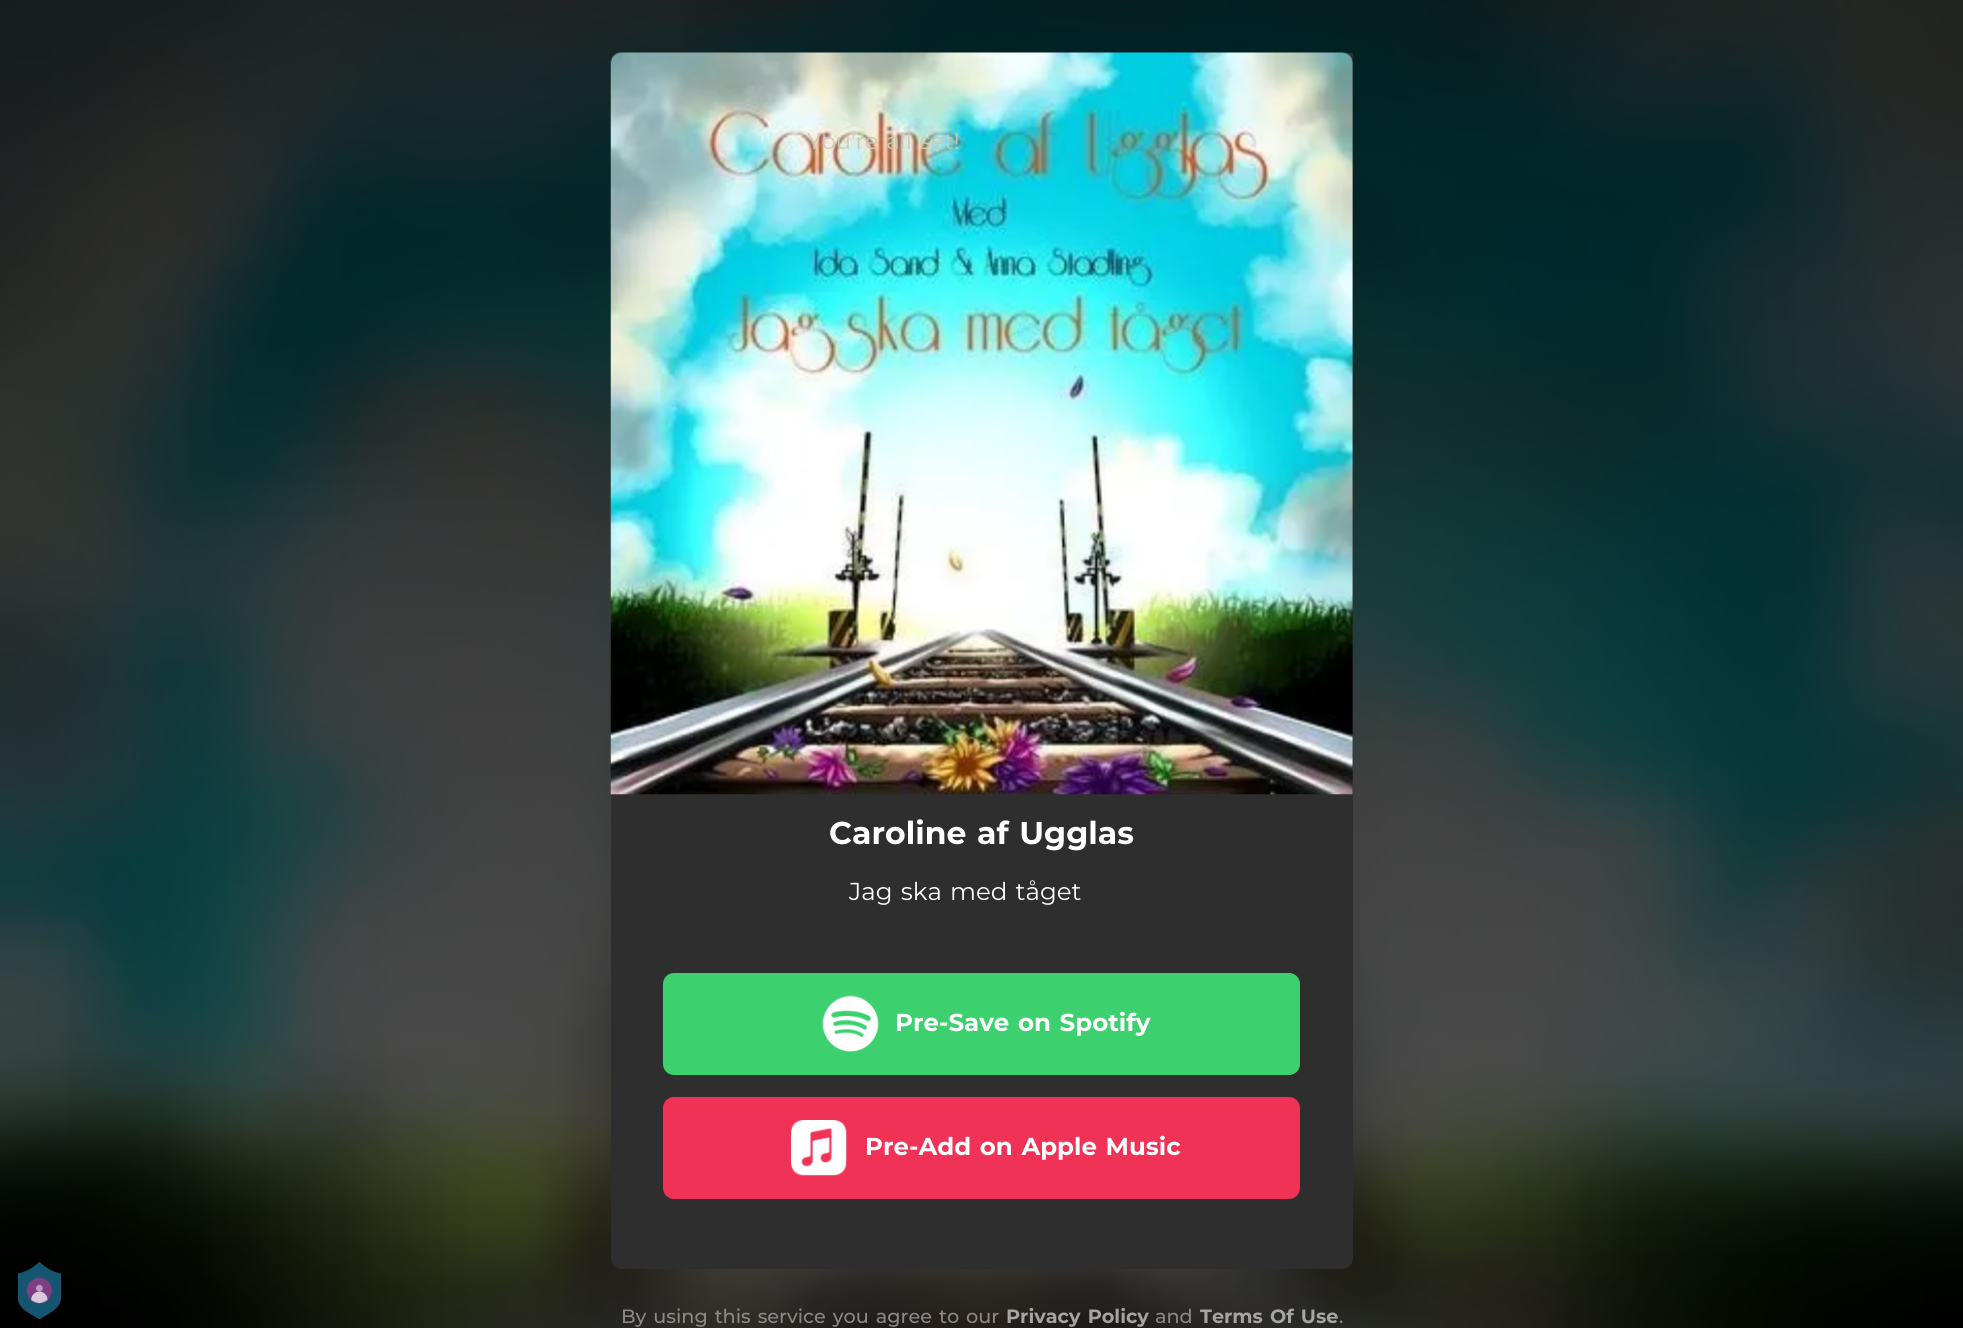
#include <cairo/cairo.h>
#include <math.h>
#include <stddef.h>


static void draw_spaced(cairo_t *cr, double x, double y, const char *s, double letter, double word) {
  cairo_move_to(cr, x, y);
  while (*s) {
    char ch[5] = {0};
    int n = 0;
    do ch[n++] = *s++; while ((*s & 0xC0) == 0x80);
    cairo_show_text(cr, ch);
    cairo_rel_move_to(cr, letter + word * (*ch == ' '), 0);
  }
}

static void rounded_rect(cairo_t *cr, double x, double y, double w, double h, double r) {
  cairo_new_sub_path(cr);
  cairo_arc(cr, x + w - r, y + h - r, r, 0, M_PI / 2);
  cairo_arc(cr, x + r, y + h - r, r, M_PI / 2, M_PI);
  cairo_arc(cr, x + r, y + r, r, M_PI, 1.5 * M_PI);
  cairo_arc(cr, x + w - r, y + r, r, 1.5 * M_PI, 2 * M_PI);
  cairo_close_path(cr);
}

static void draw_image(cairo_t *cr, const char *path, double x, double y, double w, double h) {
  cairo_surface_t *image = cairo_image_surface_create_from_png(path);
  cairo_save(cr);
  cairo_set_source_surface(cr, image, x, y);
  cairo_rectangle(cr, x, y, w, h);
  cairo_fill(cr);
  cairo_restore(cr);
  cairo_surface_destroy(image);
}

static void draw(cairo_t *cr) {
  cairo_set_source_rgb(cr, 1, 1, 1);
  cairo_paint(cr);
  draw_image(cr, "images/2.png", 0, 0, 1963, 1328);
  draw_image(cr, "images/1.png", 18, 1262, 43, 58);
  cairo_set_source_rgb(cr, 47 / 255.0, 47 / 255.0, 47 / 255.0);
  cairo_new_path(cr);
  cairo_move_to(cr, 622, 53);
  cairo_line_to(cr, 1353, 53);
  cairo_line_to(cr, 1353, 795);
  cairo_line_to(cr, 622, 795);
  cairo_curve_to(cr, 616, 795, 611, 790, 611, 784);
  cairo_line_to(cr, 611, 64);
  cairo_curve_to(cr, 611, 58, 616, 53, 622, 53);
  cairo_close_path(cr);
  cairo_fill(cr);
  draw_image(cr, "images/3.png", 610, 52, 743, 743);
  cairo_set_source_rgb(cr, 46 / 255.0, 46 / 255.0, 46 / 255.0);
  cairo_new_path(cr);
  cairo_move_to(cr, 611, 795);
  cairo_line_to(cr, 1353, 795);
  cairo_line_to(cr, 1353, 1258);
  cairo_curve_to(cr, 1353, 1264, 1348, 1269, 1342, 1269);
  cairo_line_to(cr, 622, 1269);
  cairo_curve_to(cr, 616, 1269, 611, 1264, 611, 1258);
  cairo_close_path(cr);
  cairo_fill(cr);
  cairo_set_source_rgb(cr, 60 / 255.0, 209 / 255.0, 110 / 255.0);
  rounded_rect(cr, 663, 973, 637, 102, 11);
  cairo_fill(cr);
  draw_image(cr, "images/4.png", 822, 995, 57, 57);
  cairo_set_source_rgb(cr, 239 / 255.0, 50 / 255.0, 86 / 255.0);
  rounded_rect(cr, 663, 1097, 637, 102, 11);
  cairo_fill(cr);
  draw_image(cr, "images/5.png", 791, 1120, 56, 56);
  cairo_select_font_face(cr, "Montserrat", CAIRO_FONT_SLANT_NORMAL, CAIRO_FONT_WEIGHT_NORMAL);
  cairo_set_font_size(cr, 22.75);
  cairo_set_source_rgb(cr, 198 / 255.0, 203 / 255.0, 188 / 255.0);
  draw_spaced(cr, 807, 149, "You're all set!", 0, 1.75);
  cairo_select_font_face(cr, "Montserrat", CAIRO_FONT_SLANT_NORMAL, CAIRO_FONT_WEIGHT_BOLD);
  cairo_set_font_size(cr, 31.5);
  cairo_set_source_rgb(cr, 1, 1, 1);
  draw_spaced(cr, 829, 844, "Caroline af Ugglas", 0, 1.75);
  cairo_select_font_face(cr, "Montserrat", CAIRO_FONT_SLANT_NORMAL, CAIRO_FONT_WEIGHT_NORMAL);
  cairo_set_font_size(cr, 24.5);
  draw_spaced(cr, 849, 900, "Jag ska med tåget", 0, 1.75);
  cairo_select_font_face(cr, "Montserrat", CAIRO_FONT_SLANT_NORMAL, CAIRO_FONT_WEIGHT_BOLD);
  draw_spaced(cr, 895, 1031, "Pre-Save on Spotify", 0, 1.75);
  draw_spaced(cr, 865, 1155, "Pre-Add on Apple Music", 0, 1.75);
  cairo_select_font_face(cr, "Montserrat Medium", CAIRO_FONT_SLANT_NORMAL, CAIRO_FONT_WEIGHT_NORMAL);
  cairo_set_font_size(cr, 19.25);
  cairo_set_source_rgb(cr, 138 / 255.0, 137 / 255.0, 135 / 255.0);
  draw_spaced(cr, 621, 1323, "By using this service you agree to our", 0, 1.75);
  cairo_select_font_face(cr, "Montserrat", CAIRO_FONT_SLANT_NORMAL, CAIRO_FONT_WEIGHT_BOLD);
  cairo_set_source_rgb(cr, 167 / 255.0, 165 / 255.0, 164 / 255.0);
  draw_spaced(cr, 1006, 1323, "Privacy Policy", 0, 1.75);
  cairo_select_font_face(cr, "Montserrat Medium", CAIRO_FONT_SLANT_NORMAL, CAIRO_FONT_WEIGHT_NORMAL);
  cairo_set_source_rgb(cr, 138 / 255.0, 137 / 255.0, 135 / 255.0);
  cairo_move_to(cr, 1155, 1323);
  cairo_show_text(cr, "and");
  cairo_select_font_face(cr, "Montserrat", CAIRO_FONT_SLANT_NORMAL, CAIRO_FONT_WEIGHT_BOLD);
  cairo_set_source_rgb(cr, 167 / 255.0, 165 / 255.0, 164 / 255.0);
  draw_spaced(cr, 1200, 1323, "Terms Of Use", 0, 1.75);
  cairo_select_font_face(cr, "Montserrat Medium", CAIRO_FONT_SLANT_NORMAL, CAIRO_FONT_WEIGHT_NORMAL);
  cairo_set_source_rgb(cr, 138 / 255.0, 137 / 255.0, 135 / 255.0);
  cairo_move_to(cr, 1339, 1323);
  cairo_show_text(cr, ".");
}

int main(void) {
  cairo_surface_t *surface = cairo_image_surface_create(CAIRO_FORMAT_RGB24, 1963, 1328);
  cairo_t *cr = cairo_create(surface);
  cairo_font_options_t *options = cairo_font_options_create();
  cairo_font_options_set_hint_metrics(options, CAIRO_HINT_METRICS_OFF);
  cairo_font_options_set_hint_style(options, CAIRO_HINT_STYLE_NONE);
  cairo_set_font_options(cr, options);
  cairo_set_miter_limit(cr, 4);
  draw(cr);
  cairo_surface_write_to_png(surface, "out.png");
  cairo_font_options_destroy(options);
  cairo_destroy(cr);
  cairo_surface_destroy(surface);
  return 0;
}
